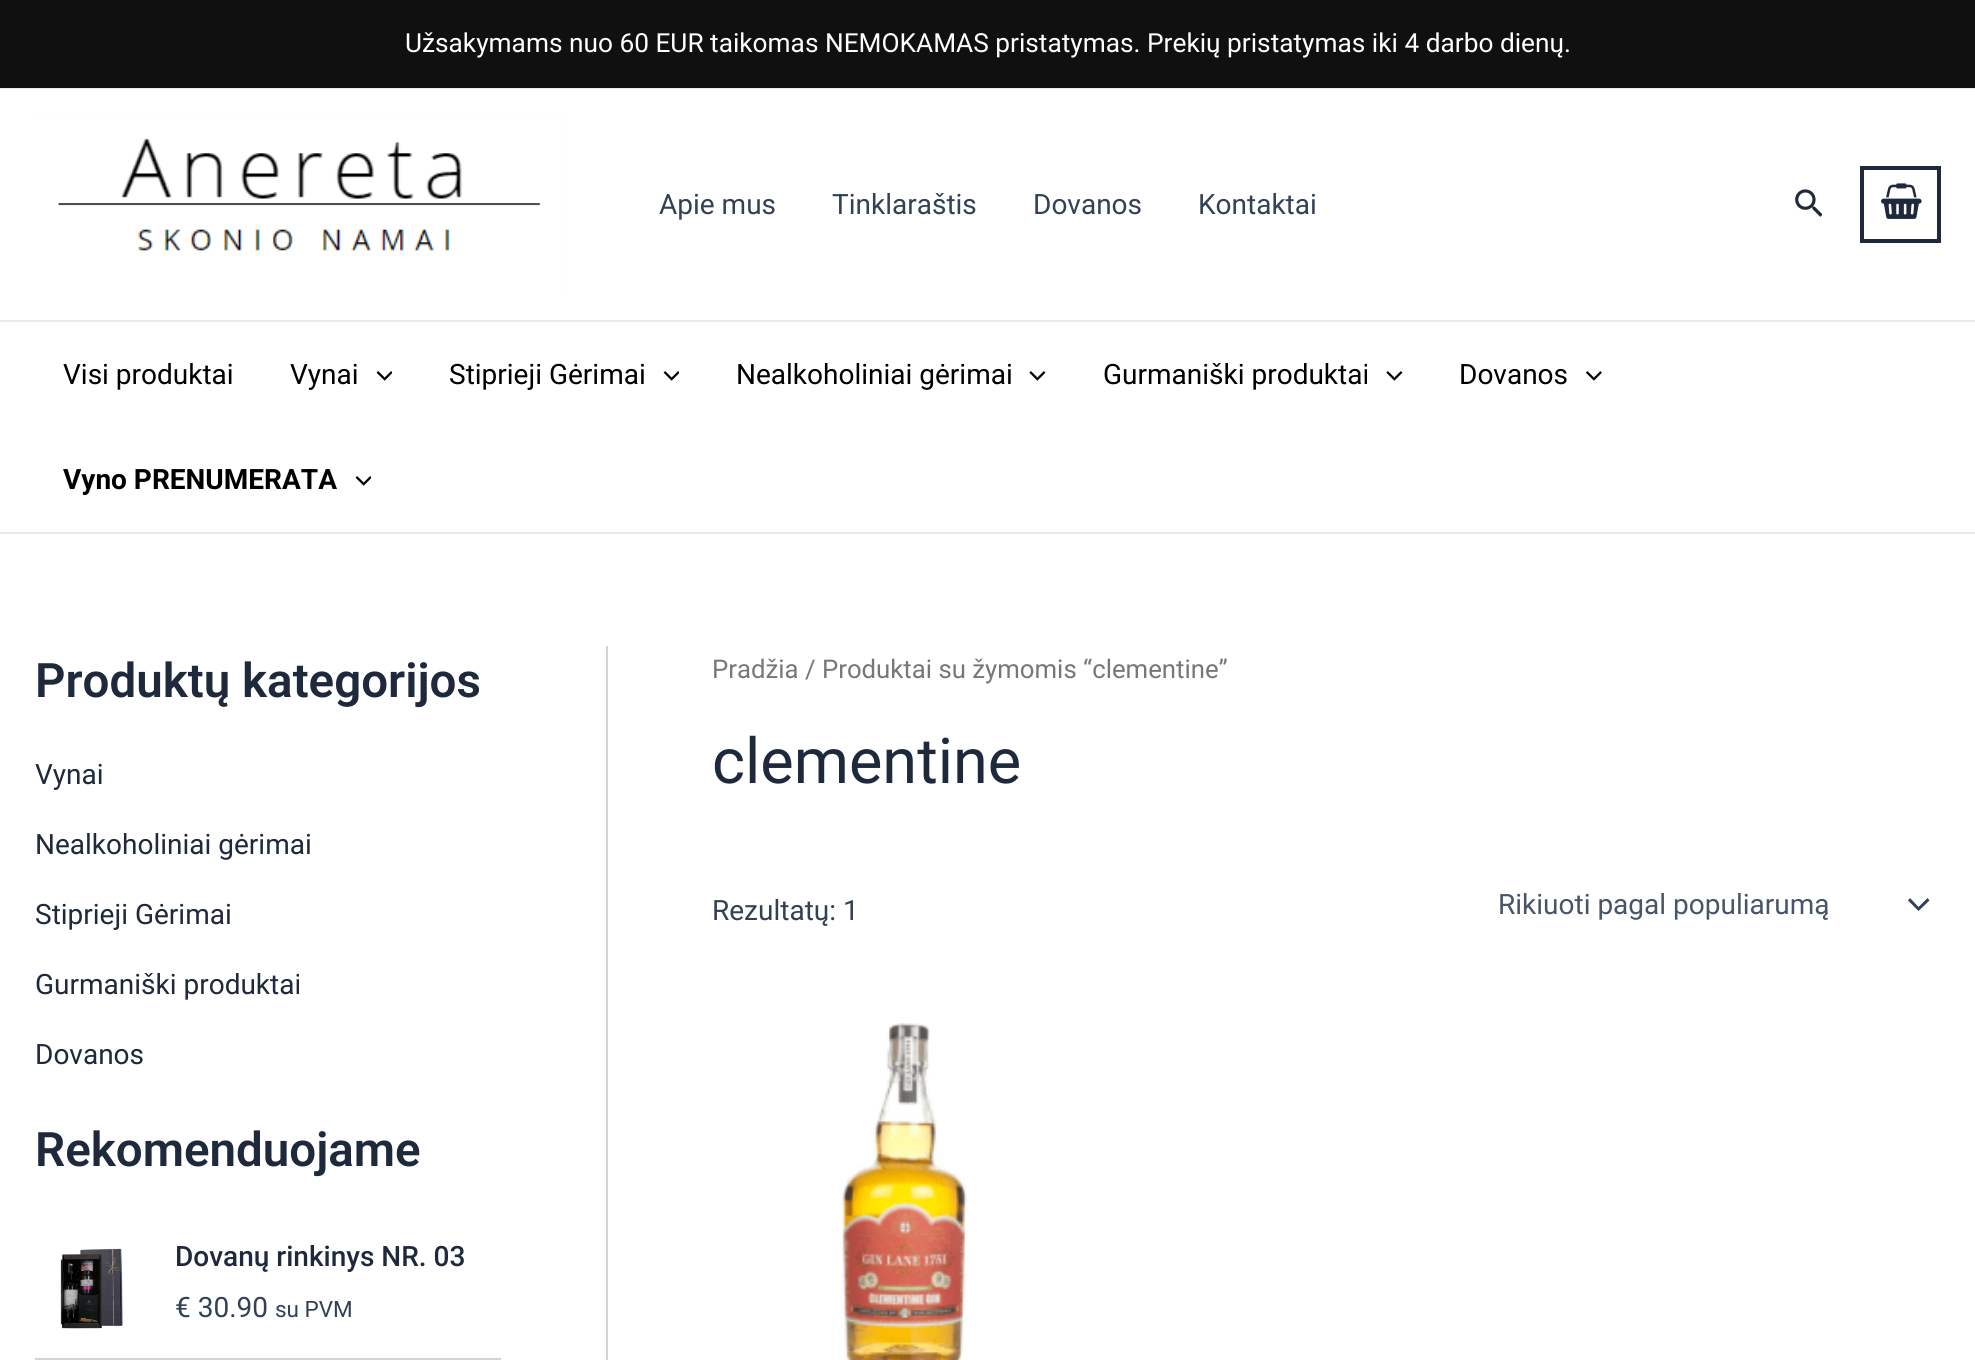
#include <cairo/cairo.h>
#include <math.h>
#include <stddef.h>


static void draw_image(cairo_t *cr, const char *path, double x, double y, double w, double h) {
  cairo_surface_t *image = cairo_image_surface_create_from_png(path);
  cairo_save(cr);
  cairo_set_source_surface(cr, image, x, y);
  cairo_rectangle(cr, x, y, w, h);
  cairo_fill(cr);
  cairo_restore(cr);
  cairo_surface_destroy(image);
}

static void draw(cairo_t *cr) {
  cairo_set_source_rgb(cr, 1, 1, 1);
  cairo_paint(cr);
  cairo_set_source_rgb(cr, 17 / 255.0, 16 / 255.0, 16 / 255.0);
  cairo_rectangle(cr, 0, 0, 1975, 88);
  cairo_fill(cr);
  cairo_set_source_rgb(cr, 234 / 255.0, 234 / 255.0, 234 / 255.0);
  cairo_rectangle(cr, 0, 88, 1975, 1);
  cairo_fill(cr);
  cairo_rectangle(cr, 0, 320, 1975, 2);
  cairo_fill(cr);
  cairo_set_source_rgb(cr, 241 / 255.0, 241 / 255.0, 241 / 255.0);
  cairo_rectangle(cr, 35, 117, 527, 175);
  cairo_fill(cr);
  draw_image(cr, "images/1.png", 35, 117, 527, 175);
  draw_image(cr, "images/2.png", 1795, 189, 27, 28);
  cairo_rectangle(cr, 1862, 168, 77, 73);
  cairo_set_source_rgb(cr, 30 / 255.0, 41 / 255.0, 59 / 255.0);
  cairo_set_line_width(cr, 4);
  cairo_stroke(cr);
  draw_image(cr, "images/3.png", 1881, 183, 41, 36);
  cairo_set_source_rgb(cr, 234 / 255.0, 234 / 255.0, 234 / 255.0);
  cairo_rectangle(cr, 0, 532, 1975, 2);
  cairo_fill(cr);
  draw_image(cr, "images/4.png", 376, 371, 16, 10);
  draw_image(cr, "images/4.png", 663, 371, 16, 10);
  draw_image(cr, "images/5.png", 1029, 371, 17, 10);
  draw_image(cr, "images/5.png", 1386, 371, 17, 10);
  draw_image(cr, "images/6.png", 1586, 371, 16, 10);
  draw_image(cr, "images/4.png", 355, 476, 16, 10);
  cairo_set_source_rgb(cr, 209 / 255.0, 213 / 255.0, 219 / 255.0);
  cairo_rectangle(cr, 606, 646, 2, 714);
  cairo_fill(cr);
  cairo_rectangle(cr, 35, 1358, 466, 2);
  cairo_fill(cr);
  draw_image(cr, "images/7.png", 35, 1232, 112, 112);
  cairo_set_source_rgb(cr, 51 / 255.0, 65 / 255.0, 85 / 255.0);
  cairo_new_path(cr);
  cairo_move_to(cr, 1908, 900.5);
  cairo_line_to(cr, 1918.5, 911);
  cairo_line_to(cr, 1929.5, 900.5);
  cairo_line_to(cr, 1927.5, 898);
  cairo_line_to(cr, 1918.5, 907);
  cairo_line_to(cr, 1910, 898);
  cairo_close_path(cr);
  cairo_fill(cr);
  draw_image(cr, "images/8.png", 842, 1023, 126, 337);
  cairo_select_font_face(cr, "Roboto", CAIRO_FONT_SLANT_NORMAL, CAIRO_FONT_WEIGHT_NORMAL);
  cairo_set_font_size(cr, 26.25);
  cairo_set_source_rgb(cr, 1, 1, 1);
  cairo_move_to(cr, 405, 52);
  cairo_show_text(cr, "Užsakymams nuo 60 EUR taikomas NEMOKAMAS pristatymas. Prekių pristatymas iki 4 darbo dienų.");
  cairo_set_font_size(cr, 28);
  cairo_set_source_rgb(cr, 51 / 255.0, 65 / 255.0, 85 / 255.0);
  cairo_move_to(cr, 659, 214);
  cairo_show_text(cr, "Apie mus");
  cairo_move_to(cr, 832, 214);
  cairo_show_text(cr, "Tinklaraštis");
  cairo_move_to(cr, 1033, 214);
  cairo_show_text(cr, "Dovanos");
  cairo_move_to(cr, 1198, 214);
  cairo_show_text(cr, "Kontaktai");
  cairo_set_source_rgb(cr, 0, 0, 0);
  cairo_move_to(cr, 63, 384);
  cairo_show_text(cr, "Visi produktai");
  cairo_move_to(cr, 290, 384);
  cairo_show_text(cr, "Vynai");
  cairo_move_to(cr, 449, 384);
  cairo_show_text(cr, "Stiprieji Gėrimai");
  cairo_move_to(cr, 736, 384);
  cairo_show_text(cr, "Nealkoholiniai gėrimai");
  cairo_move_to(cr, 1103, 384);
  cairo_show_text(cr, "Gurmaniški produktai");
  cairo_move_to(cr, 1459, 384);
  cairo_show_text(cr, "Dovanos");
  cairo_select_font_face(cr, "Roboto", CAIRO_FONT_SLANT_NORMAL, CAIRO_FONT_WEIGHT_BOLD);
  cairo_move_to(cr, 63, 489);
  cairo_show_text(cr, "Vyno PRENUMERATA");
  cairo_select_font_face(cr, "Roboto SemiBold", CAIRO_FONT_SLANT_NORMAL, CAIRO_FONT_WEIGHT_NORMAL);
  cairo_set_font_size(cr, 47.5);
  cairo_set_source_rgb(cr, 30 / 255.0, 41 / 255.0, 59 / 255.0);
  cairo_move_to(cr, 35, 697);
  cairo_show_text(cr, "Produktų kategorijos");
  cairo_select_font_face(cr, "Roboto", CAIRO_FONT_SLANT_NORMAL, CAIRO_FONT_WEIGHT_NORMAL);
  cairo_set_font_size(cr, 28);
  cairo_move_to(cr, 35, 784);
  cairo_show_text(cr, "Vynai");
  cairo_move_to(cr, 35, 854);
  cairo_show_text(cr, "Nealkoholiniai gėrimai");
  cairo_move_to(cr, 35, 924);
  cairo_show_text(cr, "Stiprieji Gėrimai");
  cairo_move_to(cr, 35, 994);
  cairo_show_text(cr, "Gurmaniški produktai");
  cairo_move_to(cr, 35, 1064);
  cairo_show_text(cr, "Dovanos");
  cairo_select_font_face(cr, "Roboto SemiBold", CAIRO_FONT_SLANT_NORMAL, CAIRO_FONT_WEIGHT_NORMAL);
  cairo_set_font_size(cr, 47.5);
  cairo_move_to(cr, 35, 1166);
  cairo_show_text(cr, "Rekomenduojame");
  cairo_select_font_face(cr, "Roboto Medium", CAIRO_FONT_SLANT_NORMAL, CAIRO_FONT_WEIGHT_NORMAL);
  cairo_set_font_size(cr, 28);
  cairo_move_to(cr, 175, 1266);
  cairo_show_text(cr, "Dovanų rinkinys NR. 03");
  cairo_select_font_face(cr, "Roboto", CAIRO_FONT_SLANT_NORMAL, CAIRO_FONT_WEIGHT_NORMAL);
  cairo_set_source_rgb(cr, 51 / 255.0, 65 / 255.0, 85 / 255.0);
  cairo_move_to(cr, 175, 1317);
  cairo_show_text(cr, "€ 30.90");
  cairo_set_font_size(cr, 22.5);
  cairo_move_to(cr, 275, 1317);
  cairo_show_text(cr, "su PVM");
  cairo_set_font_size(cr, 25.75);
  cairo_set_source_rgb(cr, 119 / 255.0, 119 / 255.0, 119 / 255.0);
  cairo_move_to(cr, 712, 678);
  cairo_show_text(cr, "Pradžia / Produktai su žymomis “clementine”");
  cairo_set_font_size(cr, 63);
  cairo_set_source_rgb(cr, 30 / 255.0, 41 / 255.0, 59 / 255.0);
  cairo_move_to(cr, 712, 783);
  cairo_show_text(cr, "clementine");
  cairo_set_font_size(cr, 28);
  cairo_set_source_rgb(cr, 51 / 255.0, 65 / 255.0, 85 / 255.0);
  cairo_move_to(cr, 712, 920);
  cairo_show_text(cr, "Rezultatų: 1");
  cairo_set_source_rgb(cr, 71 / 255.0, 85 / 255.0, 105 / 255.0);
  cairo_move_to(cr, 1498, 914);
  cairo_show_text(cr, "Rikiuoti pagal populiarumą");
}

int main(void) {
  cairo_surface_t *surface = cairo_image_surface_create(CAIRO_FORMAT_RGB24, 1975, 1360);
  cairo_t *cr = cairo_create(surface);
  cairo_font_options_t *options = cairo_font_options_create();
  cairo_font_options_set_hint_metrics(options, CAIRO_HINT_METRICS_OFF);
  cairo_font_options_set_hint_style(options, CAIRO_HINT_STYLE_NONE);
  cairo_set_font_options(cr, options);
  cairo_set_miter_limit(cr, 4);
  draw(cr);
  cairo_surface_write_to_png(surface, "out.png");
  cairo_font_options_destroy(options);
  cairo_destroy(cr);
  cairo_surface_destroy(surface);
  return 0;
}
